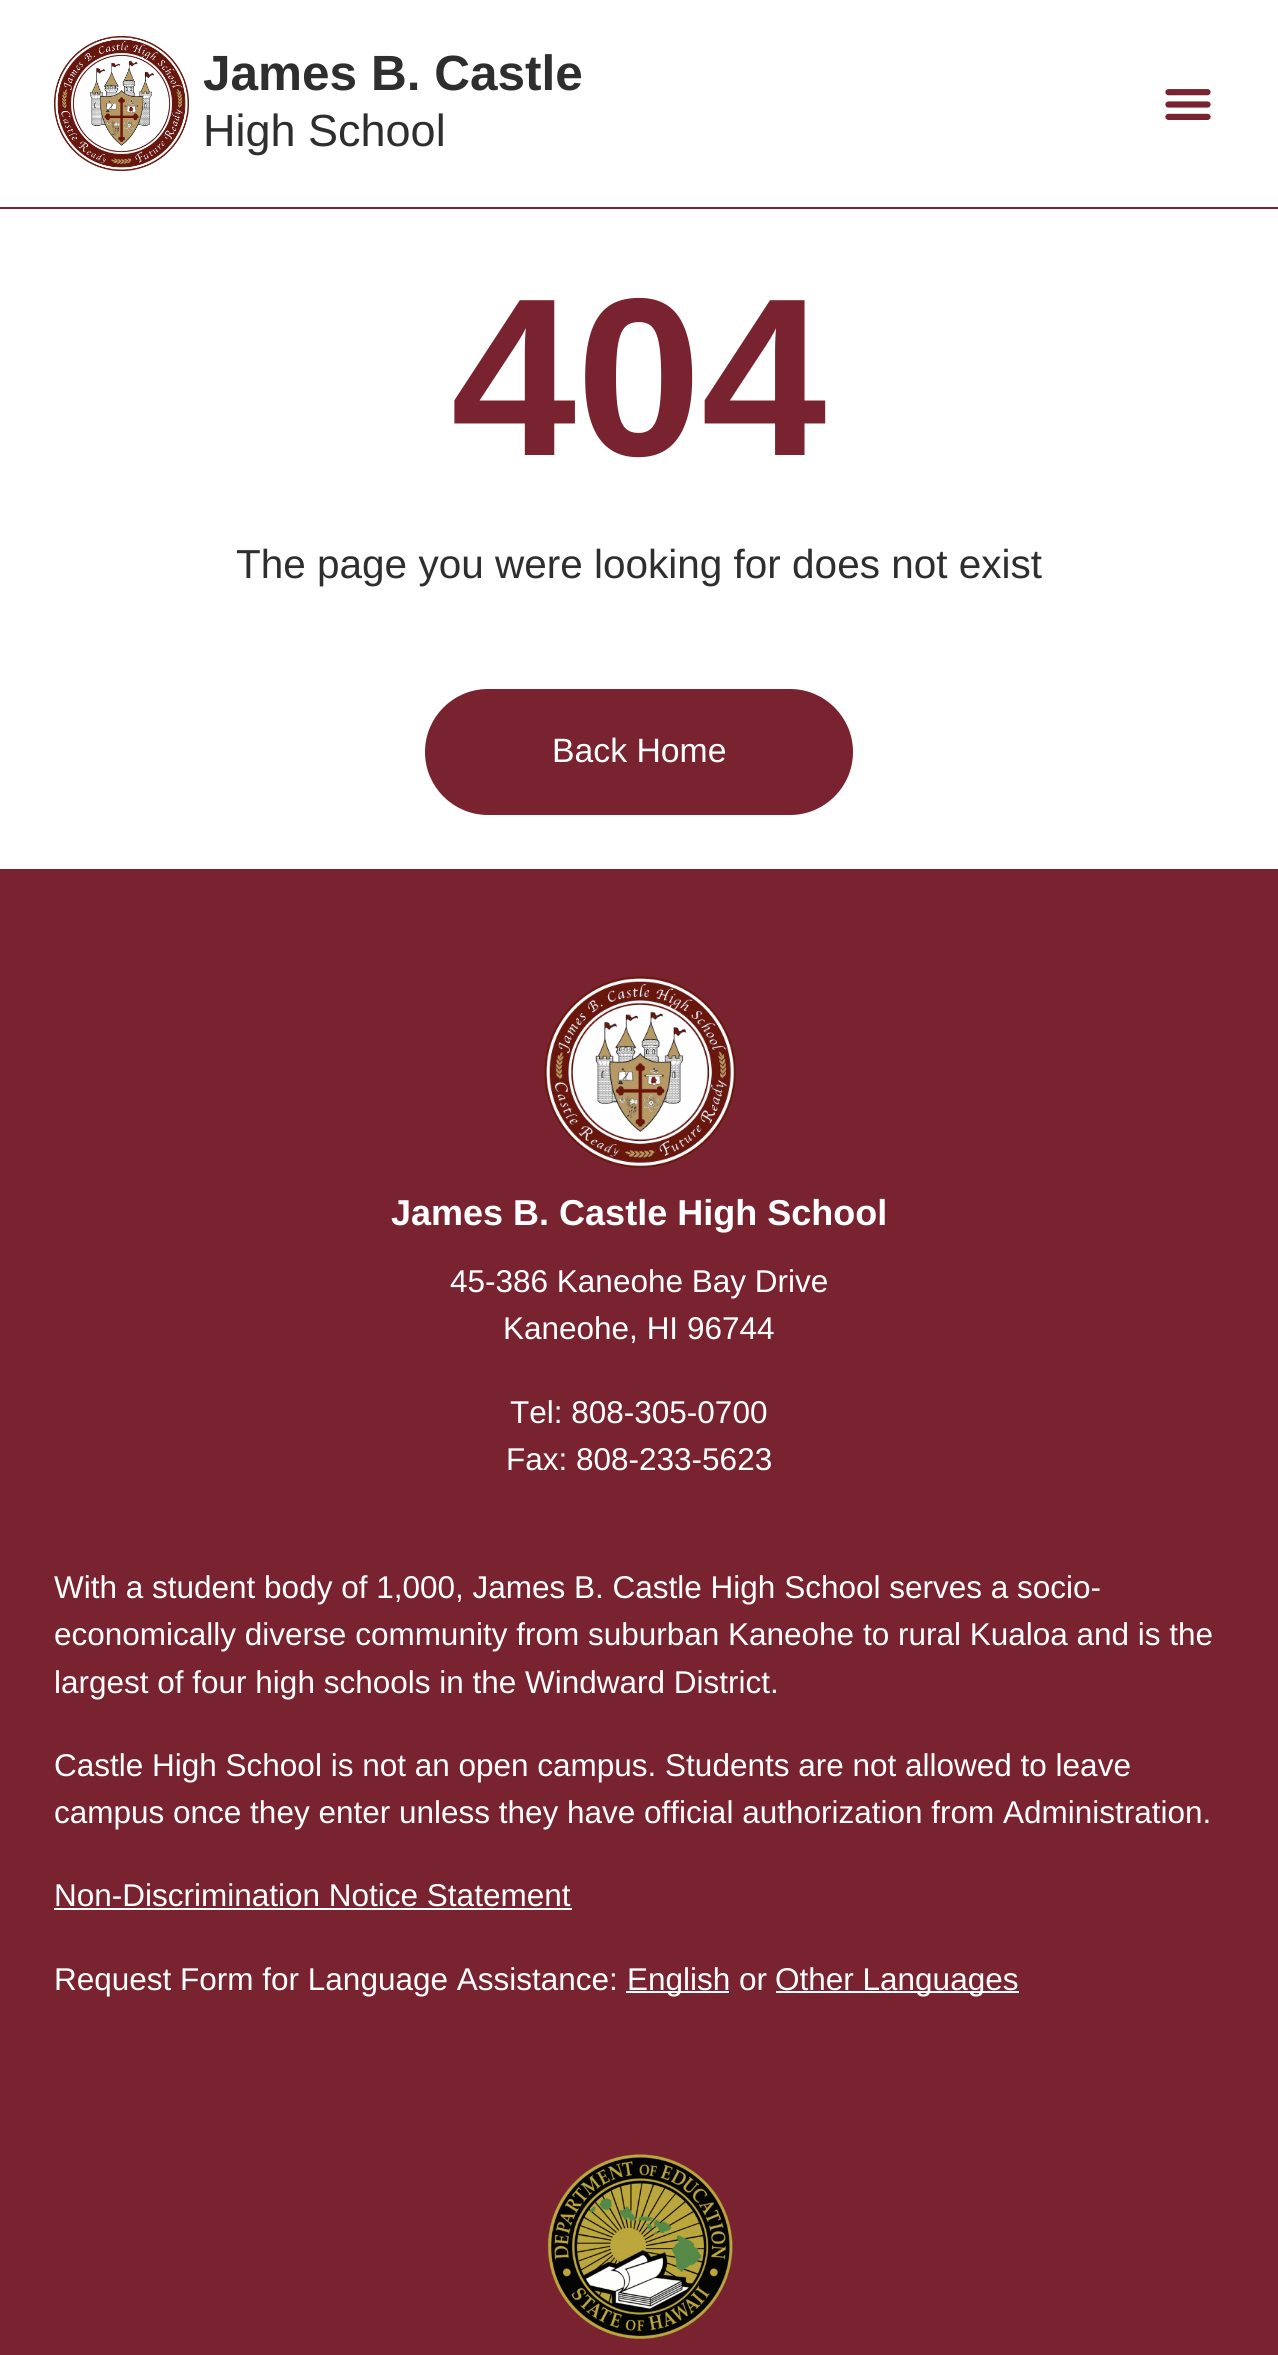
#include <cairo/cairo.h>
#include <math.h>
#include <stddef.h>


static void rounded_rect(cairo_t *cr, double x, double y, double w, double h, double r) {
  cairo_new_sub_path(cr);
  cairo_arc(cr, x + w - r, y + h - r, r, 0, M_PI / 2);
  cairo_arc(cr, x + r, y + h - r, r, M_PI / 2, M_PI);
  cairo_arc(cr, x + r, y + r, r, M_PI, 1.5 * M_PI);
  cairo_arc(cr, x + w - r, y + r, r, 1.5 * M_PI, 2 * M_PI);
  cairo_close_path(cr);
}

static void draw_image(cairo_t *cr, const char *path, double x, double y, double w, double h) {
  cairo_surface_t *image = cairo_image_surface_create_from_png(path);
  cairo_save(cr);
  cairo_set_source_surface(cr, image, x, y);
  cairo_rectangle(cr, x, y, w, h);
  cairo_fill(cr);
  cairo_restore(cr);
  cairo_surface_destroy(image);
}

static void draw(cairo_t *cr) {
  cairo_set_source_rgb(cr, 1, 1, 1);
  cairo_paint(cr);
  cairo_set_source_rgb(cr, 121 / 255.0, 35 / 255.0, 48 / 255.0);
  cairo_rectangle(cr, 0, 207, 1278, 2);
  cairo_fill(cr);
  draw_image(cr, "images/1.png", 54, 36, 135, 135);
  draw_image(cr, "images/2.png", 1165, 89, 46, 31);
  rounded_rect(cr, 426, 690, 426, 124, 62);
  cairo_fill_preserve(cr);
  cairo_stroke(cr);
  cairo_rectangle(cr, 0, 869, 1278, 1486);
  cairo_fill(cr);
  draw_image(cr, "images/3.png", 544, 976, 192, 192);
  cairo_set_source_rgb(cr, 1, 1, 1);
  cairo_rectangle(cr, 54, 1908, 518, 2);
  cairo_fill(cr);
  cairo_rectangle(cr, 626, 1991, 103, 2);
  cairo_fill(cr);
  cairo_rectangle(cr, 776, 1991, 243, 2);
  cairo_fill(cr);
  draw_image(cr, "images/4.png", 547, 2154, 186, 186);
  cairo_select_font_face(cr, "Liberation Sans", CAIRO_FONT_SLANT_NORMAL, CAIRO_FONT_WEIGHT_BOLD);
  cairo_set_font_size(cr, 49.5);
  cairo_set_source_rgb(cr, 46 / 255.0, 46 / 255.0, 46 / 255.0);
  cairo_move_to(cr, 203, 90);
  cairo_show_text(cr, "James B. Castle");
  cairo_select_font_face(cr, "Liberation Sans", CAIRO_FONT_SLANT_NORMAL, CAIRO_FONT_WEIGHT_NORMAL);
  cairo_set_font_size(cr, 45);
  cairo_move_to(cr, 203, 146);
  cairo_show_text(cr, "High School");
  cairo_select_font_face(cr, "Liberation Sans", CAIRO_FONT_SLANT_NORMAL, CAIRO_FONT_WEIGHT_BOLD);
  cairo_set_font_size(cr, 225);
  cairo_set_source_rgb(cr, 121 / 255.0, 35 / 255.0, 48 / 255.0);
  cairo_move_to(cr, 451, 455);
  cairo_show_text(cr, "404");
  cairo_select_font_face(cr, "Liberation Sans", CAIRO_FONT_SLANT_NORMAL, CAIRO_FONT_WEIGHT_NORMAL);
  cairo_set_font_size(cr, 40.5);
  cairo_set_source_rgb(cr, 46 / 255.0, 46 / 255.0, 46 / 255.0);
  cairo_move_to(cr, 236, 578);
  cairo_show_text(cr, "The page you were looking for does not exist");
  cairo_set_font_size(cr, 33.75);
  cairo_set_source_rgb(cr, 1, 1, 1);
  cairo_move_to(cr, 552, 762);
  cairo_show_text(cr, "Back Home");
  cairo_select_font_face(cr, "Liberation Sans", CAIRO_FONT_SLANT_NORMAL, CAIRO_FONT_WEIGHT_BOLD);
  cairo_set_font_size(cr, 36);
  cairo_move_to(cr, 391, 1225);
  cairo_show_text(cr, "James B. Castle High School");
  cairo_select_font_face(cr, "Liberation Sans", CAIRO_FONT_SLANT_NORMAL, CAIRO_FONT_WEIGHT_NORMAL);
  cairo_set_font_size(cr, 31.5);
  cairo_move_to(cr, 450, 1292);
  cairo_show_text(cr, "45-386 Kaneohe Bay Drive");
  cairo_move_to(cr, 503, 1339);
  cairo_show_text(cr, "Kaneohe, HI 96744");
  cairo_move_to(cr, 510, 1423);
  cairo_show_text(cr, "Tel: 808-305-0700");
  cairo_move_to(cr, 506, 1470);
  cairo_show_text(cr, "Fax: 808-233-5623");
  cairo_move_to(cr, 54, 1598);
  cairo_show_text(cr, "With a student body of 1,000, James B. Castle High School serves a socio-");
  cairo_move_to(cr, 54, 1645);
  cairo_show_text(cr, "economically diverse community from suburban Kaneohe to rural Kualoa and is the");
  cairo_move_to(cr, 54, 1693);
  cairo_show_text(cr, "largest of four high schools in the Windward District.");
  cairo_move_to(cr, 54, 1776);
  cairo_show_text(cr, "Castle High School is not an open campus. Students are not allowed to leave");
  cairo_move_to(cr, 54, 1823);
  cairo_show_text(cr, "campus once they enter unless they have official authorization from Administration.");
  cairo_move_to(cr, 54, 1906);
  cairo_show_text(cr, "Non-Discrimination Notice Statement");
  cairo_move_to(cr, 54, 1990);
  cairo_show_text(cr, "Request Form for Language Assistance:");
  cairo_move_to(cr, 627, 1990);
  cairo_show_text(cr, "English or");
  cairo_move_to(cr, 775, 1990);
  cairo_show_text(cr, "Other Languages");
}

int main(void) {
  cairo_surface_t *surface = cairo_image_surface_create(CAIRO_FORMAT_RGB24, 1278, 2355);
  cairo_t *cr = cairo_create(surface);
  cairo_font_options_t *options = cairo_font_options_create();
  cairo_font_options_set_hint_metrics(options, CAIRO_HINT_METRICS_OFF);
  cairo_font_options_set_hint_style(options, CAIRO_HINT_STYLE_NONE);
  cairo_set_font_options(cr, options);
  cairo_set_miter_limit(cr, 4);
  draw(cr);
  cairo_surface_write_to_png(surface, "out.png");
  cairo_font_options_destroy(options);
  cairo_destroy(cr);
  cairo_surface_destroy(surface);
  return 0;
}
